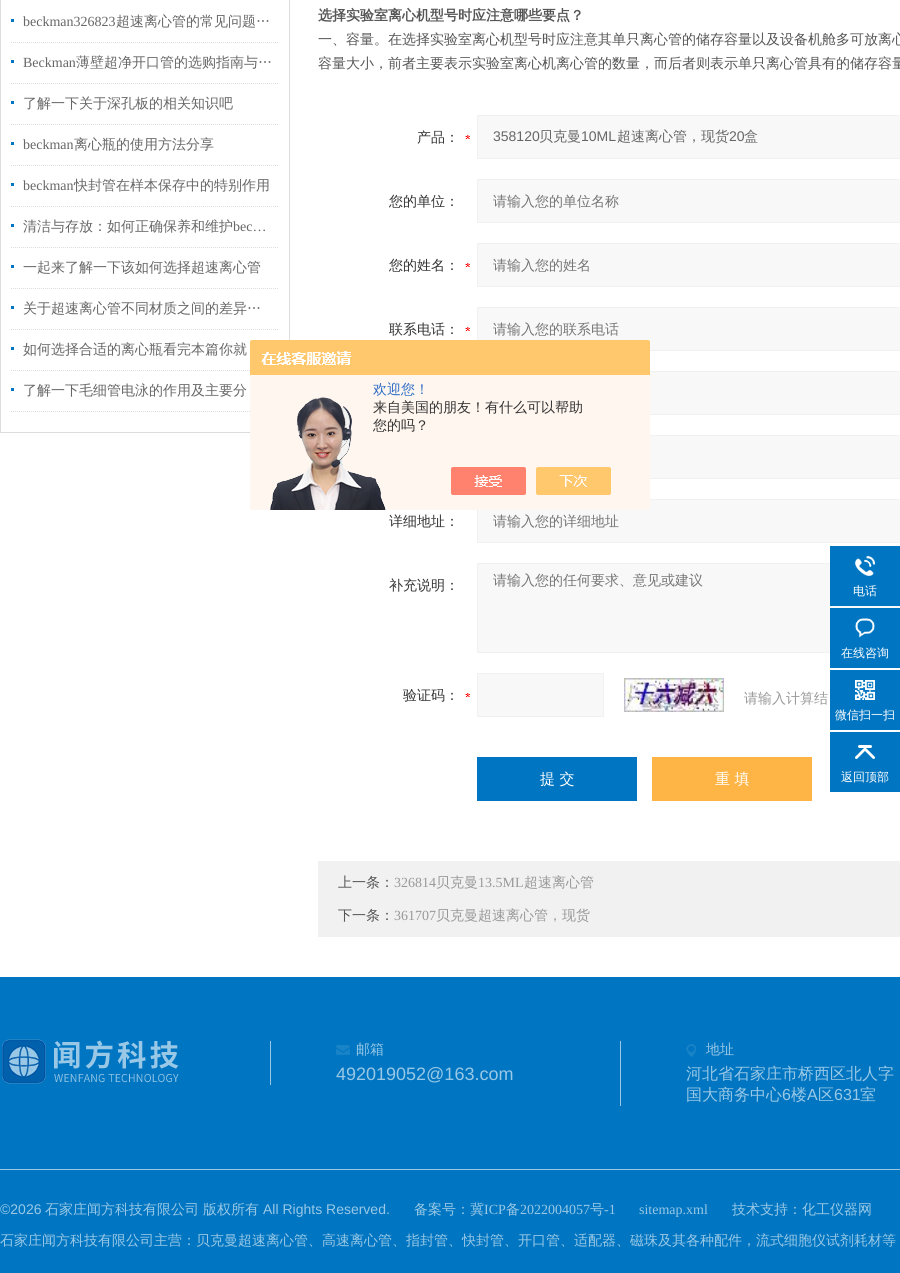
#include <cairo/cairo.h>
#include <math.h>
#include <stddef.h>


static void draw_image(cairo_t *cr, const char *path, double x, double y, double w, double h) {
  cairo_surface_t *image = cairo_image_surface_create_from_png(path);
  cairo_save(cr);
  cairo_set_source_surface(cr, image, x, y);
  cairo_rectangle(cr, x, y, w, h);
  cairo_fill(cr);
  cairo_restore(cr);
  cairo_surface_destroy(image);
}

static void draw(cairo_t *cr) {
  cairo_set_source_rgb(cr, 1, 1, 1);
  cairo_paint(cr);
  cairo_rectangle(cr, 0.5, -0.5, 289, 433);
  cairo_set_source_rgb(cr, 221 / 255.0, 221 / 255.0, 221 / 255.0);
  cairo_set_line_width(cr, 1);
  cairo_stroke(cr);
  cairo_new_path(cr);
  cairo_move_to(cr, 11, 42.5);
  cairo_line_to(cr, 279, 42.5);
  cairo_set_dash(cr, (double[]){1, 1}, 2, 0);
  cairo_stroke(cr);
  cairo_set_source_rgb(cr, 0, 117 / 255.0, 193 / 255.0);
  cairo_rectangle(cr, 11, 19, 3, 3);
  cairo_fill(cr);
  cairo_new_path(cr);
  cairo_move_to(cr, 11, 83.5);
  cairo_line_to(cr, 279, 83.5);
  cairo_set_source_rgb(cr, 221 / 255.0, 221 / 255.0, 221 / 255.0);
  cairo_stroke(cr);
  cairo_set_source_rgb(cr, 0, 117 / 255.0, 193 / 255.0);
  cairo_rectangle(cr, 11, 60, 3, 3);
  cairo_fill(cr);
  cairo_new_path(cr);
  cairo_move_to(cr, 11, 124.5);
  cairo_line_to(cr, 279, 124.5);
  cairo_set_source_rgb(cr, 221 / 255.0, 221 / 255.0, 221 / 255.0);
  cairo_stroke(cr);
  cairo_set_source_rgb(cr, 0, 117 / 255.0, 193 / 255.0);
  cairo_rectangle(cr, 11, 101, 3, 3);
  cairo_fill(cr);
  cairo_new_path(cr);
  cairo_move_to(cr, 11, 165.5);
  cairo_line_to(cr, 279, 165.5);
  cairo_set_source_rgb(cr, 221 / 255.0, 221 / 255.0, 221 / 255.0);
  cairo_stroke(cr);
  cairo_set_source_rgb(cr, 0, 117 / 255.0, 193 / 255.0);
  cairo_rectangle(cr, 11, 142, 3, 3);
  cairo_fill(cr);
  cairo_new_path(cr);
  cairo_move_to(cr, 11, 206.5);
  cairo_line_to(cr, 279, 206.5);
  cairo_set_source_rgb(cr, 221 / 255.0, 221 / 255.0, 221 / 255.0);
  cairo_stroke(cr);
  cairo_set_source_rgb(cr, 0, 117 / 255.0, 193 / 255.0);
  cairo_rectangle(cr, 11, 183, 3, 3);
  cairo_fill(cr);
  cairo_new_path(cr);
  cairo_move_to(cr, 11, 247.5);
  cairo_line_to(cr, 279, 247.5);
  cairo_set_source_rgb(cr, 221 / 255.0, 221 / 255.0, 221 / 255.0);
  cairo_stroke(cr);
  cairo_set_source_rgb(cr, 0, 117 / 255.0, 193 / 255.0);
  cairo_rectangle(cr, 11, 224, 3, 3);
  cairo_fill(cr);
  cairo_new_path(cr);
  cairo_move_to(cr, 11, 288.5);
  cairo_line_to(cr, 279, 288.5);
  cairo_set_source_rgb(cr, 221 / 255.0, 221 / 255.0, 221 / 255.0);
  cairo_stroke(cr);
  cairo_set_source_rgb(cr, 0, 117 / 255.0, 193 / 255.0);
  cairo_rectangle(cr, 11, 265, 3, 3);
  cairo_fill(cr);
  cairo_new_path(cr);
  cairo_move_to(cr, 11, 329.5);
  cairo_line_to(cr, 279, 329.5);
  cairo_set_source_rgb(cr, 221 / 255.0, 221 / 255.0, 221 / 255.0);
  cairo_stroke(cr);
  cairo_set_source_rgb(cr, 0, 117 / 255.0, 193 / 255.0);
  cairo_rectangle(cr, 11, 306, 3, 3);
  cairo_fill(cr);
  cairo_new_path(cr);
  cairo_move_to(cr, 11, 370.5);
  cairo_line_to(cr, 279, 370.5);
  cairo_set_source_rgb(cr, 221 / 255.0, 221 / 255.0, 221 / 255.0);
  cairo_stroke(cr);
  cairo_set_source_rgb(cr, 0, 117 / 255.0, 193 / 255.0);
  cairo_rectangle(cr, 11, 347, 3, 3);
  cairo_fill(cr);
  cairo_new_path(cr);
  cairo_move_to(cr, 11, 411.5);
  cairo_line_to(cr, 279, 411.5);
  cairo_set_source_rgb(cr, 221 / 255.0, 221 / 255.0, 221 / 255.0);
  cairo_stroke(cr);
  cairo_set_source_rgb(cr, 0, 117 / 255.0, 193 / 255.0);
  cairo_rectangle(cr, 11, 388, 3, 3);
  cairo_fill(cr);
  draw_image(cr, "images/1.png", 465, 135, 5, 4);
  cairo_set_source_rgb(cr, 248 / 255.0, 248 / 255.0, 248 / 255.0);
  cairo_rectangle(cr, 477.5, 115.5, 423, 43);
  cairo_fill_preserve(cr);
  cairo_set_source_rgb(cr, 241 / 255.0, 241 / 255.0, 241 / 255.0);
  cairo_set_dash(cr, NULL, 0, 0);
  cairo_stroke(cr);
  cairo_set_source_rgb(cr, 248 / 255.0, 248 / 255.0, 248 / 255.0);
  cairo_rectangle(cr, 477.5, 179.5, 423, 43);
  cairo_fill_preserve(cr);
  cairo_set_source_rgb(cr, 241 / 255.0, 241 / 255.0, 241 / 255.0);
  cairo_stroke(cr);
  draw_image(cr, "images/1.png", 465, 263, 5, 4);
  cairo_set_source_rgb(cr, 248 / 255.0, 248 / 255.0, 248 / 255.0);
  cairo_rectangle(cr, 477.5, 243.5, 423, 43);
  cairo_fill_preserve(cr);
  cairo_set_source_rgb(cr, 241 / 255.0, 241 / 255.0, 241 / 255.0);
  cairo_stroke(cr);
  draw_image(cr, "images/1.png", 465, 327, 5, 4);
  cairo_set_source_rgb(cr, 248 / 255.0, 248 / 255.0, 248 / 255.0);
  cairo_rectangle(cr, 477.5, 307.5, 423, 43);
  cairo_fill_preserve(cr);
  cairo_set_source_rgb(cr, 241 / 255.0, 241 / 255.0, 241 / 255.0);
  cairo_stroke(cr);
  cairo_set_source_rgb(cr, 248 / 255.0, 248 / 255.0, 248 / 255.0);
  cairo_rectangle(cr, 650, 372, 250, 42);
  cairo_fill(cr);
  cairo_rectangle(cr, 477.5, 371.5, 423, 43);
  cairo_set_source_rgb(cr, 241 / 255.0, 241 / 255.0, 241 / 255.0);
  cairo_stroke(cr);
  cairo_set_source_rgb(cr, 248 / 255.0, 248 / 255.0, 248 / 255.0);
  cairo_rectangle(cr, 650, 436, 250, 42);
  cairo_fill(cr);
  cairo_rectangle(cr, 477.5, 435.5, 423, 43);
  cairo_set_source_rgb(cr, 241 / 255.0, 241 / 255.0, 241 / 255.0);
  cairo_stroke(cr);
  cairo_set_source_rgb(cr, 248 / 255.0, 248 / 255.0, 248 / 255.0);
  cairo_rectangle(cr, 477.5, 499.5, 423, 43);
  cairo_fill_preserve(cr);
  cairo_set_source_rgb(cr, 241 / 255.0, 241 / 255.0, 241 / 255.0);
  cairo_stroke(cr);
  cairo_set_source_rgb(cr, 248 / 255.0, 248 / 255.0, 248 / 255.0);
  cairo_rectangle(cr, 477.5, 563.5, 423, 89);
  cairo_fill_preserve(cr);
  cairo_set_source_rgb(cr, 241 / 255.0, 241 / 255.0, 241 / 255.0);
  cairo_stroke(cr);
  draw_image(cr, "images/1.png", 465, 693, 5, 4);
  cairo_set_source_rgb(cr, 248 / 255.0, 248 / 255.0, 248 / 255.0);
  cairo_rectangle(cr, 477.5, 673.5, 126, 43);
  cairo_fill_preserve(cr);
  cairo_set_source_rgb(cr, 241 / 255.0, 241 / 255.0, 241 / 255.0);
  cairo_stroke(cr);
  draw_image(cr, "images/2.png", 624, 678, 100, 34);
  cairo_set_source_rgb(cr, 0, 117 / 255.0, 193 / 255.0);
  cairo_rectangle(cr, 477, 757, 160, 44);
  cairo_fill(cr);
  cairo_set_source_rgb(cr, 1, 181 / 255.0, 69 / 255.0);
  cairo_rectangle(cr, 652, 757, 160, 44);
  cairo_fill(cr);
  cairo_set_source_rgb(cr, 241 / 255.0, 241 / 255.0, 241 / 255.0);
  cairo_rectangle(cr, 318, 861, 582, 76);
  cairo_fill(cr);
  draw_image(cr, "images/3.png", 250, 340, 400, 170);
  cairo_set_source_rgb(cr, 0, 117 / 255.0, 193 / 255.0);
  cairo_rectangle(cr, 830, 546, 70, 60);
  cairo_fill(cr);
  draw_image(cr, "images/4.png", 855, 556, 20, 20);
  cairo_rectangle(cr, 830, 608, 70, 60);
  cairo_fill(cr);
  draw_image(cr, "images/5.png", 855, 618, 20, 20);
  cairo_rectangle(cr, 830, 670, 70, 60);
  cairo_fill(cr);
  draw_image(cr, "images/6.png", 855, 680, 20, 20);
  cairo_rectangle(cr, 830, 732, 70, 60);
  cairo_fill(cr);
  draw_image(cr, "images/7.png", 855, 745, 20, 14);
  cairo_rectangle(cr, 0, 977, 900, 296);
  cairo_fill(cr);
  draw_image(cr, "images/8.png", 2, 1039, 177, 45);
  cairo_set_source_rgb(cr, 153 / 255.0, 200 / 255.0, 230 / 255.0);
  cairo_rectangle(cr, 270, 1041, 1, 44);
  cairo_fill(cr);
  draw_image(cr, "images/9.png", 336, 1045, 14, 10);
  cairo_rectangle(cr, 620, 1041, 1, 65);
  cairo_fill(cr);
  draw_image(cr, "images/10.png", 686, 1044, 10, 13);
  cairo_rectangle(cr, 0, 1169, 900, 1);
  cairo_fill(cr);
  cairo_select_font_face(cr, "Liberation Serif", CAIRO_FONT_SLANT_NORMAL, CAIRO_FONT_WEIGHT_NORMAL);
  cairo_set_font_size(cr, 14);
  cairo_set_source_rgb(cr, 102 / 255.0, 102 / 255.0, 102 / 255.0);
  cairo_move_to(cr, 23, 26);
  cairo_show_text(cr, "beckman326823");
  cairo_select_font_face(cr, "WenQuanYi Zen Hei Medium", CAIRO_FONT_SLANT_NORMAL, CAIRO_FONT_WEIGHT_NORMAL);
  cairo_move_to(cr, 116, 26);
  cairo_show_text(cr, "超速离心管的常见问题…");
  cairo_select_font_face(cr, "Liberation Serif", CAIRO_FONT_SLANT_NORMAL, CAIRO_FONT_WEIGHT_NORMAL);
  cairo_move_to(cr, 23, 67);
  cairo_show_text(cr, "Beckman");
  cairo_select_font_face(cr, "WenQuanYi Zen Hei Medium", CAIRO_FONT_SLANT_NORMAL, CAIRO_FONT_WEIGHT_NORMAL);
  cairo_move_to(cr, 76, 67);
  cairo_show_text(cr, "薄壁超净开口管的选购指南与…");
  cairo_move_to(cr, 23, 108);
  cairo_show_text(cr, "了解一下关于深孔板的相关知识吧");
  cairo_select_font_face(cr, "Liberation Serif", CAIRO_FONT_SLANT_NORMAL, CAIRO_FONT_WEIGHT_NORMAL);
  cairo_move_to(cr, 23, 149);
  cairo_show_text(cr, "beckman");
  cairo_select_font_face(cr, "WenQuanYi Zen Hei Medium", CAIRO_FONT_SLANT_NORMAL, CAIRO_FONT_WEIGHT_NORMAL);
  cairo_move_to(cr, 74, 149);
  cairo_show_text(cr, "离心瓶的使用方法分享");
  cairo_select_font_face(cr, "Liberation Serif", CAIRO_FONT_SLANT_NORMAL, CAIRO_FONT_WEIGHT_NORMAL);
  cairo_move_to(cr, 23, 190);
  cairo_show_text(cr, "beckman");
  cairo_select_font_face(cr, "WenQuanYi Zen Hei Medium", CAIRO_FONT_SLANT_NORMAL, CAIRO_FONT_WEIGHT_NORMAL);
  cairo_move_to(cr, 74, 190);
  cairo_show_text(cr, "快封管在样本保存中的特别作用");
  cairo_move_to(cr, 23, 231);
  cairo_show_text(cr, "清洁与存放：如何正确保养和维护");
  cairo_select_font_face(cr, "Liberation Serif", CAIRO_FONT_SLANT_NORMAL, CAIRO_FONT_WEIGHT_NORMAL);
  cairo_move_to(cr, 233, 231);
  cairo_show_text(cr, "bec…");
  cairo_select_font_face(cr, "WenQuanYi Zen Hei Medium", CAIRO_FONT_SLANT_NORMAL, CAIRO_FONT_WEIGHT_NORMAL);
  cairo_move_to(cr, 23, 272);
  cairo_show_text(cr, "一起来了解一下该如何选择超速离心管");
  cairo_move_to(cr, 23, 313);
  cairo_show_text(cr, "关于超速离心管不同材质之间的差异…");
  cairo_move_to(cr, 23, 354);
  cairo_show_text(cr, "如何选择合适的离心瓶看完本篇你就");
  cairo_move_to(cr, 23, 395);
  cairo_show_text(cr, "了解一下毛细管电泳的作用及主要分");
  cairo_select_font_face(cr, "WenQuanYi Zen Hei", CAIRO_FONT_SLANT_NORMAL, CAIRO_FONT_WEIGHT_BOLD);
  cairo_set_source_rgb(cr, 85 / 255.0, 85 / 255.0, 85 / 255.0);
  cairo_move_to(cr, 318, 20);
  cairo_show_text(cr, "选择实验室离心机型号时应注意哪些要点？");
  cairo_select_font_face(cr, "WenQuanYi Zen Hei Medium", CAIRO_FONT_SLANT_NORMAL, CAIRO_FONT_WEIGHT_NORMAL);
  cairo_move_to(cr, 318, 44);
  cairo_show_text(cr, "一、容量。在选择实验室离心机型号时应注意其单只离心管的储存容量以及设备机舱多可放离心");
  cairo_move_to(cr, 318, 68);
  cairo_show_text(cr, "容量大小，前者主要表示实验室离心机离心管的数量，而后者则表示单只离心管具有的储存容量");
  cairo_set_source_rgb(cr, 51 / 255.0, 51 / 255.0, 51 / 255.0);
  cairo_move_to(cr, 417, 142);
  cairo_show_text(cr, "产品：");
  cairo_select_font_face(cr, "Liberation Sans", CAIRO_FONT_SLANT_NORMAL, CAIRO_FONT_WEIGHT_NORMAL);
  cairo_set_source_rgb(cr, 102 / 255.0, 102 / 255.0, 102 / 255.0);
  cairo_move_to(cr, 493, 141);
  cairo_show_text(cr, "358120");
  cairo_select_font_face(cr, "WenQuanYi Zen Hei Medium", CAIRO_FONT_SLANT_NORMAL, CAIRO_FONT_WEIGHT_NORMAL);
  cairo_move_to(cr, 539, 141);
  cairo_show_text(cr, "贝克曼");
  cairo_select_font_face(cr, "Liberation Sans", CAIRO_FONT_SLANT_NORMAL, CAIRO_FONT_WEIGHT_NORMAL);
  cairo_move_to(cr, 581, 141);
  cairo_show_text(cr, "10ML");
  cairo_select_font_face(cr, "WenQuanYi Zen Hei Medium", CAIRO_FONT_SLANT_NORMAL, CAIRO_FONT_WEIGHT_NORMAL);
  cairo_move_to(cr, 617, 141);
  cairo_show_text(cr, "超速离心管，现货");
  cairo_select_font_face(cr, "Liberation Sans", CAIRO_FONT_SLANT_NORMAL, CAIRO_FONT_WEIGHT_NORMAL);
  cairo_move_to(cr, 729, 141);
  cairo_show_text(cr, "20");
  cairo_select_font_face(cr, "WenQuanYi Zen Hei Medium", CAIRO_FONT_SLANT_NORMAL, CAIRO_FONT_WEIGHT_NORMAL);
  cairo_move_to(cr, 744, 141);
  cairo_show_text(cr, "盒");
  cairo_set_source_rgb(cr, 51 / 255.0, 51 / 255.0, 51 / 255.0);
  cairo_move_to(cr, 389, 206);
  cairo_show_text(cr, "您的单位：");
  cairo_set_source_rgb(cr, 117 / 255.0, 117 / 255.0, 117 / 255.0);
  cairo_move_to(cr, 493, 206);
  cairo_show_text(cr, "请输入您的单位名称");
  cairo_set_source_rgb(cr, 51 / 255.0, 51 / 255.0, 51 / 255.0);
  cairo_move_to(cr, 389, 270);
  cairo_show_text(cr, "您的姓名：");
  cairo_set_source_rgb(cr, 117 / 255.0, 117 / 255.0, 117 / 255.0);
  cairo_move_to(cr, 493, 270);
  cairo_show_text(cr, "请输入您的姓名");
  cairo_set_source_rgb(cr, 51 / 255.0, 51 / 255.0, 51 / 255.0);
  cairo_move_to(cr, 389, 334);
  cairo_show_text(cr, "联系电话：");
  cairo_set_source_rgb(cr, 117 / 255.0, 117 / 255.0, 117 / 255.0);
  cairo_move_to(cr, 493, 334);
  cairo_show_text(cr, "请输入您的联系电话");
  cairo_set_source_rgb(cr, 51 / 255.0, 51 / 255.0, 51 / 255.0);
  cairo_move_to(cr, 389, 526);
  cairo_show_text(cr, "详细地址：");
  cairo_set_source_rgb(cr, 117 / 255.0, 117 / 255.0, 117 / 255.0);
  cairo_move_to(cr, 493, 526);
  cairo_show_text(cr, "请输入您的详细地址");
  cairo_set_source_rgb(cr, 51 / 255.0, 51 / 255.0, 51 / 255.0);
  cairo_move_to(cr, 389, 590);
  cairo_show_text(cr, "补充说明：");
  cairo_set_source_rgb(cr, 117 / 255.0, 117 / 255.0, 117 / 255.0);
  cairo_move_to(cr, 493, 585);
  cairo_show_text(cr, "请输入您的任何要求、意见或建议");
  cairo_set_source_rgb(cr, 51 / 255.0, 51 / 255.0, 51 / 255.0);
  cairo_move_to(cr, 403, 700);
  cairo_show_text(cr, "验证码：");
  cairo_set_source_rgb(cr, 153 / 255.0, 153 / 255.0, 153 / 255.0);
  cairo_move_to(cr, 744, 703);
  cairo_show_text(cr, "请输入计算结");
  cairo_set_font_size(cr, 15);
  cairo_set_source_rgb(cr, 1, 1, 1);
  cairo_move_to(cr, 540, 784);
  cairo_show_text(cr, "提 交");
  cairo_move_to(cr, 715, 784);
  cairo_show_text(cr, "重 填");
  cairo_set_font_size(cr, 14);
  cairo_set_source_rgb(cr, 85 / 255.0, 85 / 255.0, 85 / 255.0);
  cairo_move_to(cr, 338, 887);
  cairo_show_text(cr, "上一条：");
  cairo_select_font_face(cr, "Liberation Serif", CAIRO_FONT_SLANT_NORMAL, CAIRO_FONT_WEIGHT_NORMAL);
  cairo_set_source_rgb(cr, 153 / 255.0, 153 / 255.0, 153 / 255.0);
  cairo_move_to(cr, 394, 887);
  cairo_show_text(cr, "326814");
  cairo_select_font_face(cr, "WenQuanYi Zen Hei Medium", CAIRO_FONT_SLANT_NORMAL, CAIRO_FONT_WEIGHT_NORMAL);
  cairo_move_to(cr, 436, 887);
  cairo_show_text(cr, "贝克曼");
  cairo_select_font_face(cr, "Liberation Serif", CAIRO_FONT_SLANT_NORMAL, CAIRO_FONT_WEIGHT_NORMAL);
  cairo_move_to(cr, 478, 887);
  cairo_show_text(cr, "13.5ML");
  cairo_select_font_face(cr, "WenQuanYi Zen Hei Medium", CAIRO_FONT_SLANT_NORMAL, CAIRO_FONT_WEIGHT_NORMAL);
  cairo_move_to(cr, 524, 887);
  cairo_show_text(cr, "超速离心管");
  cairo_set_source_rgb(cr, 85 / 255.0, 85 / 255.0, 85 / 255.0);
  cairo_move_to(cr, 338, 920);
  cairo_show_text(cr, "下一条：");
  cairo_select_font_face(cr, "Liberation Serif", CAIRO_FONT_SLANT_NORMAL, CAIRO_FONT_WEIGHT_NORMAL);
  cairo_set_source_rgb(cr, 153 / 255.0, 153 / 255.0, 153 / 255.0);
  cairo_move_to(cr, 394, 920);
  cairo_show_text(cr, "361707");
  cairo_select_font_face(cr, "WenQuanYi Zen Hei Medium", CAIRO_FONT_SLANT_NORMAL, CAIRO_FONT_WEIGHT_NORMAL);
  cairo_move_to(cr, 436, 920);
  cairo_show_text(cr, "贝克曼超速离心管，现货");
  cairo_set_source_rgb(cr, 46 / 255.0, 110 / 255.0, 198 / 255.0);
  cairo_move_to(cr, 373, 394);
  cairo_show_text(cr, "欢迎您！");
  cairo_set_source_rgb(cr, 51 / 255.0, 51 / 255.0, 51 / 255.0);
  cairo_move_to(cr, 373, 412);
  cairo_show_text(cr, "来自美国的朋友！有什么可以帮助");
  cairo_move_to(cr, 373, 430);
  cairo_show_text(cr, "您的吗？");
  cairo_set_font_size(cr, 12);
  cairo_set_source_rgb(cr, 1, 1, 1);
  cairo_move_to(cr, 853, 595);
  cairo_show_text(cr, "电话");
  cairo_move_to(cr, 841, 657);
  cairo_show_text(cr, "在线咨询");
  cairo_move_to(cr, 835, 719);
  cairo_show_text(cr, "微信扫一扫");
  cairo_move_to(cr, 841, 781);
  cairo_show_text(cr, "返回顶部");
  cairo_set_font_size(cr, 14);
  cairo_set_source_rgb(cr, 153 / 255.0, 200 / 255.0, 230 / 255.0);
  cairo_move_to(cr, 356, 1054);
  cairo_show_text(cr, "邮箱");
  cairo_select_font_face(cr, "Liberation Sans", CAIRO_FONT_SLANT_NORMAL, CAIRO_FONT_WEIGHT_NORMAL);
  cairo_set_font_size(cr, 18);
  cairo_move_to(cr, 336, 1080);
  cairo_show_text(cr, "492019052@163.com");
  cairo_select_font_face(cr, "WenQuanYi Zen Hei Medium", CAIRO_FONT_SLANT_NORMAL, CAIRO_FONT_WEIGHT_NORMAL);
  cairo_set_font_size(cr, 14);
  cairo_move_to(cr, 706, 1054);
  cairo_show_text(cr, "地址");
  cairo_set_font_size(cr, 16);
  cairo_move_to(cr, 686, 1079);
  cairo_show_text(cr, "河北省石家庄市桥西区北人字");
  cairo_move_to(cr, 686, 1100);
  cairo_show_text(cr, "国大商务中心");
  cairo_select_font_face(cr, "Liberation Sans", CAIRO_FONT_SLANT_NORMAL, CAIRO_FONT_WEIGHT_NORMAL);
  cairo_move_to(cr, 782, 1100);
  cairo_show_text(cr, "6");
  cairo_select_font_face(cr, "WenQuanYi Zen Hei Medium", CAIRO_FONT_SLANT_NORMAL, CAIRO_FONT_WEIGHT_NORMAL);
  cairo_move_to(cr, 791, 1100);
  cairo_show_text(cr, "楼");
  cairo_select_font_face(cr, "Liberation Sans", CAIRO_FONT_SLANT_NORMAL, CAIRO_FONT_WEIGHT_NORMAL);
  cairo_move_to(cr, 807, 1100);
  cairo_show_text(cr, "A");
  cairo_select_font_face(cr, "WenQuanYi Zen Hei Medium", CAIRO_FONT_SLANT_NORMAL, CAIRO_FONT_WEIGHT_NORMAL);
  cairo_move_to(cr, 818, 1100);
  cairo_show_text(cr, "区");
  cairo_select_font_face(cr, "Liberation Sans", CAIRO_FONT_SLANT_NORMAL, CAIRO_FONT_WEIGHT_NORMAL);
  cairo_move_to(cr, 834, 1100);
  cairo_show_text(cr, "631");
  cairo_select_font_face(cr, "WenQuanYi Zen Hei Medium", CAIRO_FONT_SLANT_NORMAL, CAIRO_FONT_WEIGHT_NORMAL);
  cairo_move_to(cr, 860, 1100);
  cairo_show_text(cr, "室");
  cairo_select_font_face(cr, "Liberation Sans", CAIRO_FONT_SLANT_NORMAL, CAIRO_FONT_WEIGHT_NORMAL);
  cairo_set_font_size(cr, 14);
  cairo_move_to(cr, 0, 1214);
  cairo_show_text(cr, "©2026");
  cairo_select_font_face(cr, "WenQuanYi Zen Hei Medium", CAIRO_FONT_SLANT_NORMAL, CAIRO_FONT_WEIGHT_NORMAL);
  cairo_move_to(cr, 45, 1214);
  cairo_show_text(cr, "石家庄闻方科技有限公司");
  cairo_move_to(cr, 203, 1214);
  cairo_show_text(cr, "版权所有");
  cairo_select_font_face(cr, "Liberation Sans", CAIRO_FONT_SLANT_NORMAL, CAIRO_FONT_WEIGHT_NORMAL);
  cairo_move_to(cr, 263, 1214);
  cairo_show_text(cr, "All Rights Reserved.");
  cairo_select_font_face(cr, "WenQuanYi Zen Hei Medium", CAIRO_FONT_SLANT_NORMAL, CAIRO_FONT_WEIGHT_NORMAL);
  cairo_move_to(cr, 414, 1214);
  cairo_show_text(cr, "备案号：冀");
  cairo_select_font_face(cr, "Liberation Serif", CAIRO_FONT_SLANT_NORMAL, CAIRO_FONT_WEIGHT_NORMAL);
  cairo_move_to(cr, 484, 1214);
  cairo_show_text(cr, "ICP");
  cairo_select_font_face(cr, "WenQuanYi Zen Hei Medium", CAIRO_FONT_SLANT_NORMAL, CAIRO_FONT_WEIGHT_NORMAL);
  cairo_move_to(cr, 506, 1214);
  cairo_show_text(cr, "备");
  cairo_select_font_face(cr, "Liberation Serif", CAIRO_FONT_SLANT_NORMAL, CAIRO_FONT_WEIGHT_NORMAL);
  cairo_move_to(cr, 520, 1214);
  cairo_show_text(cr, "2022004057");
  cairo_select_font_face(cr, "WenQuanYi Zen Hei Medium", CAIRO_FONT_SLANT_NORMAL, CAIRO_FONT_WEIGHT_NORMAL);
  cairo_move_to(cr, 590, 1214);
  cairo_show_text(cr, "号");
  cairo_select_font_face(cr, "Liberation Serif", CAIRO_FONT_SLANT_NORMAL, CAIRO_FONT_WEIGHT_NORMAL);
  cairo_move_to(cr, 604, 1214);
  cairo_show_text(cr, "-1");
  cairo_move_to(cr, 639, 1214);
  cairo_show_text(cr, "sitemap.xml");
  cairo_select_font_face(cr, "WenQuanYi Zen Hei Medium", CAIRO_FONT_SLANT_NORMAL, CAIRO_FONT_WEIGHT_NORMAL);
  cairo_move_to(cr, 732, 1214);
  cairo_show_text(cr, "技术支持：化工仪器网");
  cairo_move_to(cr, 0, 1245);
  cairo_show_text(cr, "石家庄闻方科技有限公司主营：贝克曼超速离心管、高速离心管、指封管、快封管、开口管、适配器、磁珠及其各种配件，流式细胞仪试剂耗材等");
}

int main(void) {
  cairo_surface_t *surface = cairo_image_surface_create(CAIRO_FORMAT_RGB24, 900, 1273);
  cairo_t *cr = cairo_create(surface);
  cairo_font_options_t *options = cairo_font_options_create();
  cairo_font_options_set_hint_metrics(options, CAIRO_HINT_METRICS_OFF);
  cairo_font_options_set_hint_style(options, CAIRO_HINT_STYLE_NONE);
  cairo_set_font_options(cr, options);
  cairo_set_miter_limit(cr, 4);
  draw(cr);
  cairo_surface_write_to_png(surface, "out.png");
  cairo_font_options_destroy(options);
  cairo_destroy(cr);
  cairo_surface_destroy(surface);
  return 0;
}
